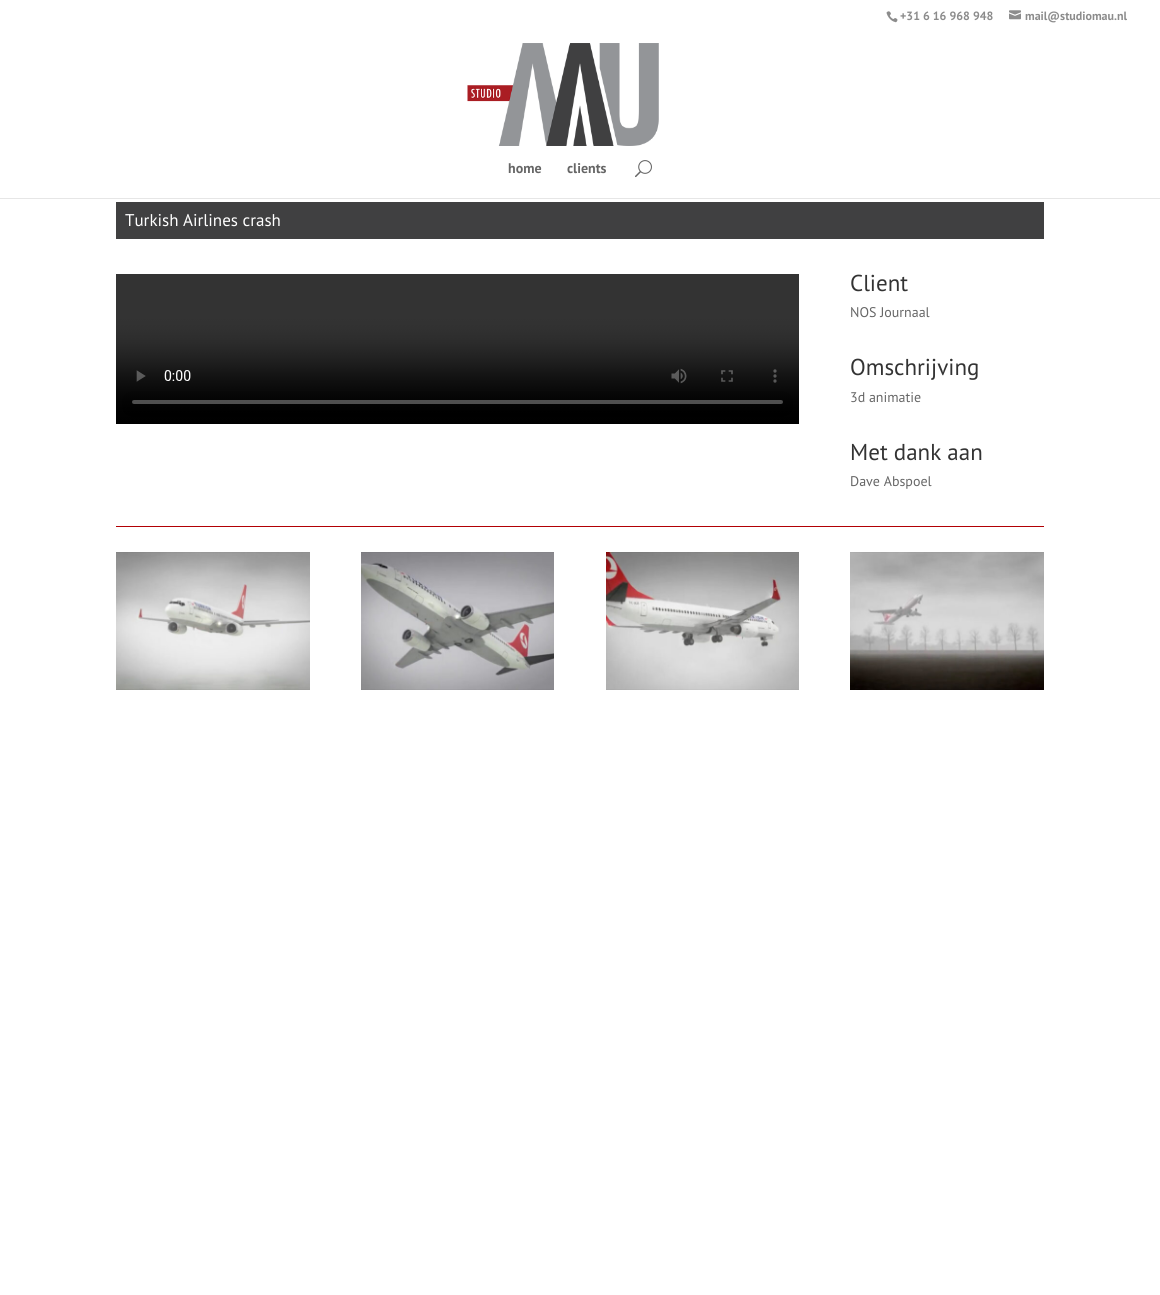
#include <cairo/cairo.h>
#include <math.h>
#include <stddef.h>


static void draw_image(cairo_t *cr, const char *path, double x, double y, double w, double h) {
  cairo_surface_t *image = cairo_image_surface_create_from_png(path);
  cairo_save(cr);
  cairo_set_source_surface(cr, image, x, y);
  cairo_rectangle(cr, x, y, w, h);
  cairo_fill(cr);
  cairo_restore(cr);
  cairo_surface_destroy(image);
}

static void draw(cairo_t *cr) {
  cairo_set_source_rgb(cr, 1, 1, 1);
  cairo_paint(cr);
  draw_image(cr, "images/1.png", 886, 11, 12, 12);
  draw_image(cr, "images/2.png", 1009, 10, 12, 10);
  cairo_set_source_rgb(cr, 230 / 255.0, 230 / 255.0, 230 / 255.0);
  cairo_rectangle(cr, 0, 198, 1160, 1);
  cairo_fill(cr);
  draw_image(cr, "images/3.png", 467, 43, 192, 103);
  draw_image(cr, "images/4.png", 635, 160, 17, 18);
  cairo_set_source_rgb(cr, 64 / 255.0, 64 / 255.0, 65 / 255.0);
  cairo_rectangle(cr, 116, 202, 928, 37);
  cairo_fill(cr);
  draw_image(cr, "images/5.png", 116, 274, 683, 150);
  cairo_set_source_rgb(cr, 178 / 255.0, 0, 5 / 255.0);
  cairo_rectangle(cr, 116, 526, 928, 1);
  cairo_fill(cr);
  draw_image(cr, "images/6.png", 116, 552, 194, 138);
  draw_image(cr, "images/7.png", 361, 552, 193, 138);
  draw_image(cr, "images/8.png", 606, 552, 193, 138);
  draw_image(cr, "images/9.png", 850, 552, 194, 138);
  cairo_select_font_face(cr, "PT Sans", CAIRO_FONT_SLANT_NORMAL, CAIRO_FONT_WEIGHT_BOLD);
  cairo_set_font_size(cr, 12);
  cairo_set_source_rgb(cr, 140 / 255.0, 140 / 255.0, 140 / 255.0);
  cairo_move_to(cr, 900, 20);
  cairo_show_text(cr, "+31 6 16 968 948");
  cairo_move_to(cr, 1025, 20);
  cairo_show_text(cr, "mail@studiomau.nl");
  cairo_set_font_size(cr, 14);
  cairo_set_source_rgb(cr, 102 / 255.0, 102 / 255.0, 102 / 255.0);
  cairo_move_to(cr, 508, 173);
  cairo_show_text(cr, "home");
  cairo_move_to(cr, 567, 173);
  cairo_show_text(cr, "clients");
  cairo_select_font_face(cr, "PT Sans", CAIRO_FONT_SLANT_NORMAL, CAIRO_FONT_WEIGHT_NORMAL);
  cairo_set_font_size(cr, 17);
  cairo_set_source_rgb(cr, 1, 1, 1);
  cairo_move_to(cr, 125, 226);
  cairo_show_text(cr, "Turkish Airlines crash");
  cairo_set_font_size(cr, 23);
  cairo_set_source_rgb(cr, 51 / 255.0, 51 / 255.0, 51 / 255.0);
  cairo_move_to(cr, 850, 291);
  cairo_show_text(cr, "Client");
  cairo_set_font_size(cr, 14);
  cairo_set_source_rgb(cr, 102 / 255.0, 102 / 255.0, 102 / 255.0);
  cairo_move_to(cr, 850, 317);
  cairo_show_text(cr, "NOS Journaal");
  cairo_set_font_size(cr, 23);
  cairo_set_source_rgb(cr, 51 / 255.0, 51 / 255.0, 51 / 255.0);
  cairo_move_to(cr, 850, 375);
  cairo_show_text(cr, "Omschrijving");
  cairo_set_font_size(cr, 14);
  cairo_set_source_rgb(cr, 102 / 255.0, 102 / 255.0, 102 / 255.0);
  cairo_move_to(cr, 850, 402);
  cairo_show_text(cr, "3d animatie");
  cairo_set_font_size(cr, 23);
  cairo_set_source_rgb(cr, 51 / 255.0, 51 / 255.0, 51 / 255.0);
  cairo_move_to(cr, 850, 460);
  cairo_show_text(cr, "Met dank aan");
  cairo_set_font_size(cr, 14);
  cairo_set_source_rgb(cr, 102 / 255.0, 102 / 255.0, 102 / 255.0);
  cairo_move_to(cr, 850, 486);
  cairo_show_text(cr, "Dave Abspoel");
}

int main(void) {
  cairo_surface_t *surface = cairo_image_surface_create(CAIRO_FORMAT_RGB24, 1160, 1295);
  cairo_t *cr = cairo_create(surface);
  cairo_font_options_t *options = cairo_font_options_create();
  cairo_font_options_set_hint_metrics(options, CAIRO_HINT_METRICS_OFF);
  cairo_font_options_set_hint_style(options, CAIRO_HINT_STYLE_NONE);
  cairo_set_font_options(cr, options);
  cairo_set_miter_limit(cr, 4);
  draw(cr);
  cairo_surface_write_to_png(surface, "out.png");
  cairo_font_options_destroy(options);
  cairo_destroy(cr);
  cairo_surface_destroy(surface);
  return 0;
}
